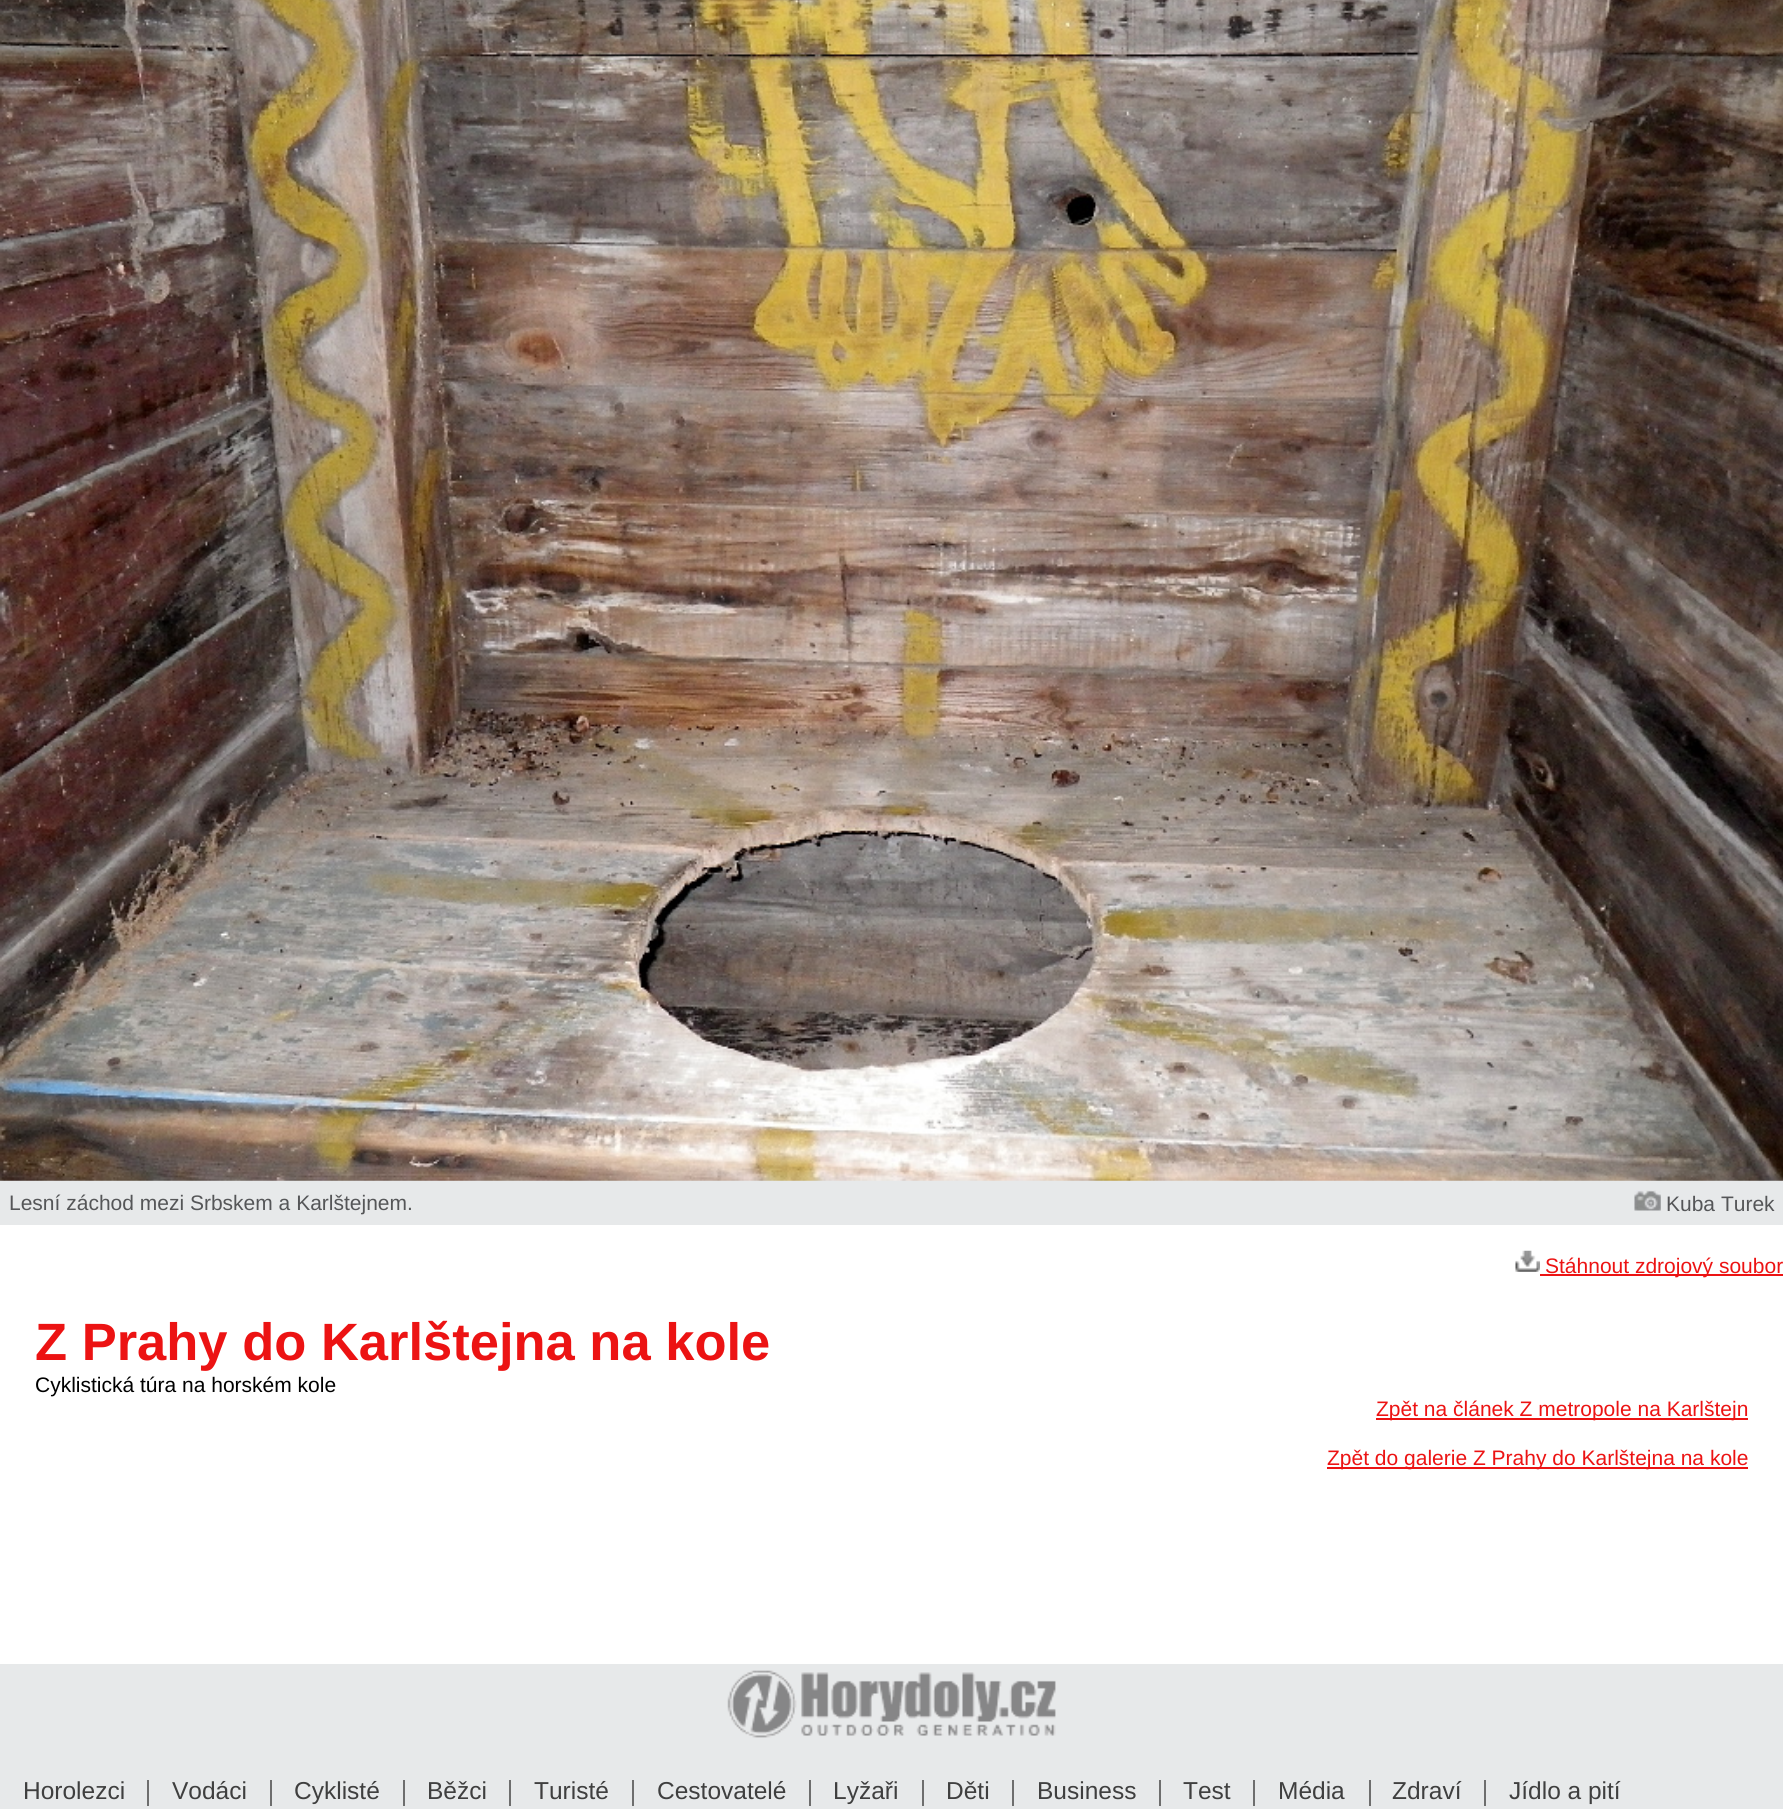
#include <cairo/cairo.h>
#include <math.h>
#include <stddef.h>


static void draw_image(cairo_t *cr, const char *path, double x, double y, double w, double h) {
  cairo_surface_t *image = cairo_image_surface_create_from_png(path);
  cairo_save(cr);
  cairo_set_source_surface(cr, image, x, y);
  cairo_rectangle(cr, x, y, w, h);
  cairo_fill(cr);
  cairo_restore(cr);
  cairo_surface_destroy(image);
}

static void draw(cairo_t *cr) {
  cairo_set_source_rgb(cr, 231 / 255.0, 233 / 255.0, 234 / 255.0);
  cairo_paint(cr);
  cairo_set_source_rgb(cr, 1, 1, 1);
  cairo_rectangle(cr, 0, 1225, 1783, 439);
  cairo_fill(cr);
  draw_image(cr, "images/1.png", 0, 0, 1783, 1181);
  draw_image(cr, "images/2.png", 1634, 1190, 27, 21);
  draw_image(cr, "images/3.png", 1515, 1250, 25, 22);
  cairo_set_source_rgb(cr, 236 / 255.0, 19 / 255.0, 19 / 255.0);
  cairo_rectangle(cr, 1540, 1274, 243, 2);
  cairo_fill(cr);
  cairo_rectangle(cr, 1376, 1418, 372, 2);
  cairo_fill(cr);
  cairo_rectangle(cr, 1327, 1467, 421, 2);
  cairo_fill(cr);
  draw_image(cr, "images/4.png", 727, 1670, 329, 68);
  cairo_set_source_rgb(cr, 110 / 255.0, 110 / 255.0, 110 / 255.0);
  cairo_rectangle(cr, 147, 1780, 2, 26);
  cairo_fill(cr);
  cairo_rectangle(cr, 270, 1780, 2, 26);
  cairo_fill(cr);
  cairo_rectangle(cr, 403, 1780, 2, 26);
  cairo_fill(cr);
  cairo_rectangle(cr, 509, 1780, 2, 26);
  cairo_fill(cr);
  cairo_rectangle(cr, 632, 1780, 2, 26);
  cairo_fill(cr);
  cairo_rectangle(cr, 809, 1780, 2, 26);
  cairo_fill(cr);
  cairo_rectangle(cr, 922, 1780, 2, 26);
  cairo_fill(cr);
  cairo_rectangle(cr, 1012, 1780, 2, 26);
  cairo_fill(cr);
  cairo_rectangle(cr, 1159, 1780, 2, 26);
  cairo_fill(cr);
  cairo_rectangle(cr, 1253, 1780, 2, 26);
  cairo_fill(cr);
  cairo_rectangle(cr, 1369, 1780, 2, 26);
  cairo_fill(cr);
  cairo_rectangle(cr, 1484, 1780, 2, 26);
  cairo_fill(cr);
  cairo_select_font_face(cr, "Liberation Sans", CAIRO_FONT_SLANT_NORMAL, CAIRO_FONT_WEIGHT_NORMAL);
  cairo_set_font_size(cr, 21);
  cairo_set_source_rgb(cr, 85 / 255.0, 86 / 255.0, 88 / 255.0);
  cairo_move_to(cr, 9, 1210);
  cairo_show_text(cr, "Lesní záchod mezi Srbskem a Karlštejnem.");
  cairo_move_to(cr, 1666, 1211);
  cairo_show_text(cr, "Kuba Turek");
  cairo_set_source_rgb(cr, 236 / 255.0, 19 / 255.0, 19 / 255.0);
  cairo_move_to(cr, 1545, 1273);
  cairo_show_text(cr, "Stáhnout zdrojový soubor");
  cairo_select_font_face(cr, "Liberation Sans", CAIRO_FONT_SLANT_NORMAL, CAIRO_FONT_WEIGHT_BOLD);
  cairo_set_font_size(cr, 52.5);
  cairo_move_to(cr, 35, 1360);
  cairo_show_text(cr, "Z Prahy do Karlštejna na kole");
  cairo_select_font_face(cr, "Liberation Sans", CAIRO_FONT_SLANT_NORMAL, CAIRO_FONT_WEIGHT_NORMAL);
  cairo_set_font_size(cr, 21);
  cairo_set_source_rgb(cr, 0, 0, 0);
  cairo_move_to(cr, 35, 1392);
  cairo_show_text(cr, "Cyklistická túra na horském kole");
  cairo_set_source_rgb(cr, 236 / 255.0, 19 / 255.0, 19 / 255.0);
  cairo_move_to(cr, 1376, 1416);
  cairo_show_text(cr, "Zpět na článek Z metropole na Karlštejn");
  cairo_move_to(cr, 1327, 1465);
  cairo_show_text(cr, "Zpět do galerie Z Prahy do Karlštejna na kole");
  cairo_set_font_size(cr, 24.5);
  cairo_set_source_rgb(cr, 63 / 255.0, 63 / 255.0, 63 / 255.0);
  cairo_move_to(cr, 23, 1799);
  cairo_show_text(cr, "Horolezci");
  cairo_move_to(cr, 172, 1799);
  cairo_show_text(cr, "Vodáci");
  cairo_move_to(cr, 294, 1799);
  cairo_show_text(cr, "Cyklisté");
  cairo_move_to(cr, 427, 1799);
  cairo_show_text(cr, "Běžci");
  cairo_move_to(cr, 534, 1799);
  cairo_show_text(cr, "Turisté");
  cairo_move_to(cr, 657, 1799);
  cairo_show_text(cr, "Cestovatelé");
  cairo_move_to(cr, 833, 1799);
  cairo_show_text(cr, "Lyžaři");
  cairo_move_to(cr, 946, 1799);
  cairo_show_text(cr, "Děti");
  cairo_move_to(cr, 1037, 1799);
  cairo_show_text(cr, "Business");
  cairo_move_to(cr, 1183, 1799);
  cairo_show_text(cr, "Test");
  cairo_move_to(cr, 1278, 1799);
  cairo_show_text(cr, "Média");
  cairo_move_to(cr, 1392, 1799);
  cairo_show_text(cr, "Zdraví");
  cairo_move_to(cr, 1509, 1799);
  cairo_show_text(cr, "Jídlo a pití");
}

int main(void) {
  cairo_surface_t *surface = cairo_image_surface_create(CAIRO_FORMAT_RGB24, 1783, 1809);
  cairo_t *cr = cairo_create(surface);
  cairo_font_options_t *options = cairo_font_options_create();
  cairo_font_options_set_hint_metrics(options, CAIRO_HINT_METRICS_OFF);
  cairo_font_options_set_hint_style(options, CAIRO_HINT_STYLE_NONE);
  cairo_set_font_options(cr, options);
  cairo_set_miter_limit(cr, 4);
  draw(cr);
  cairo_surface_write_to_png(surface, "out.png");
  cairo_font_options_destroy(options);
  cairo_destroy(cr);
  cairo_surface_destroy(surface);
  return 0;
}
